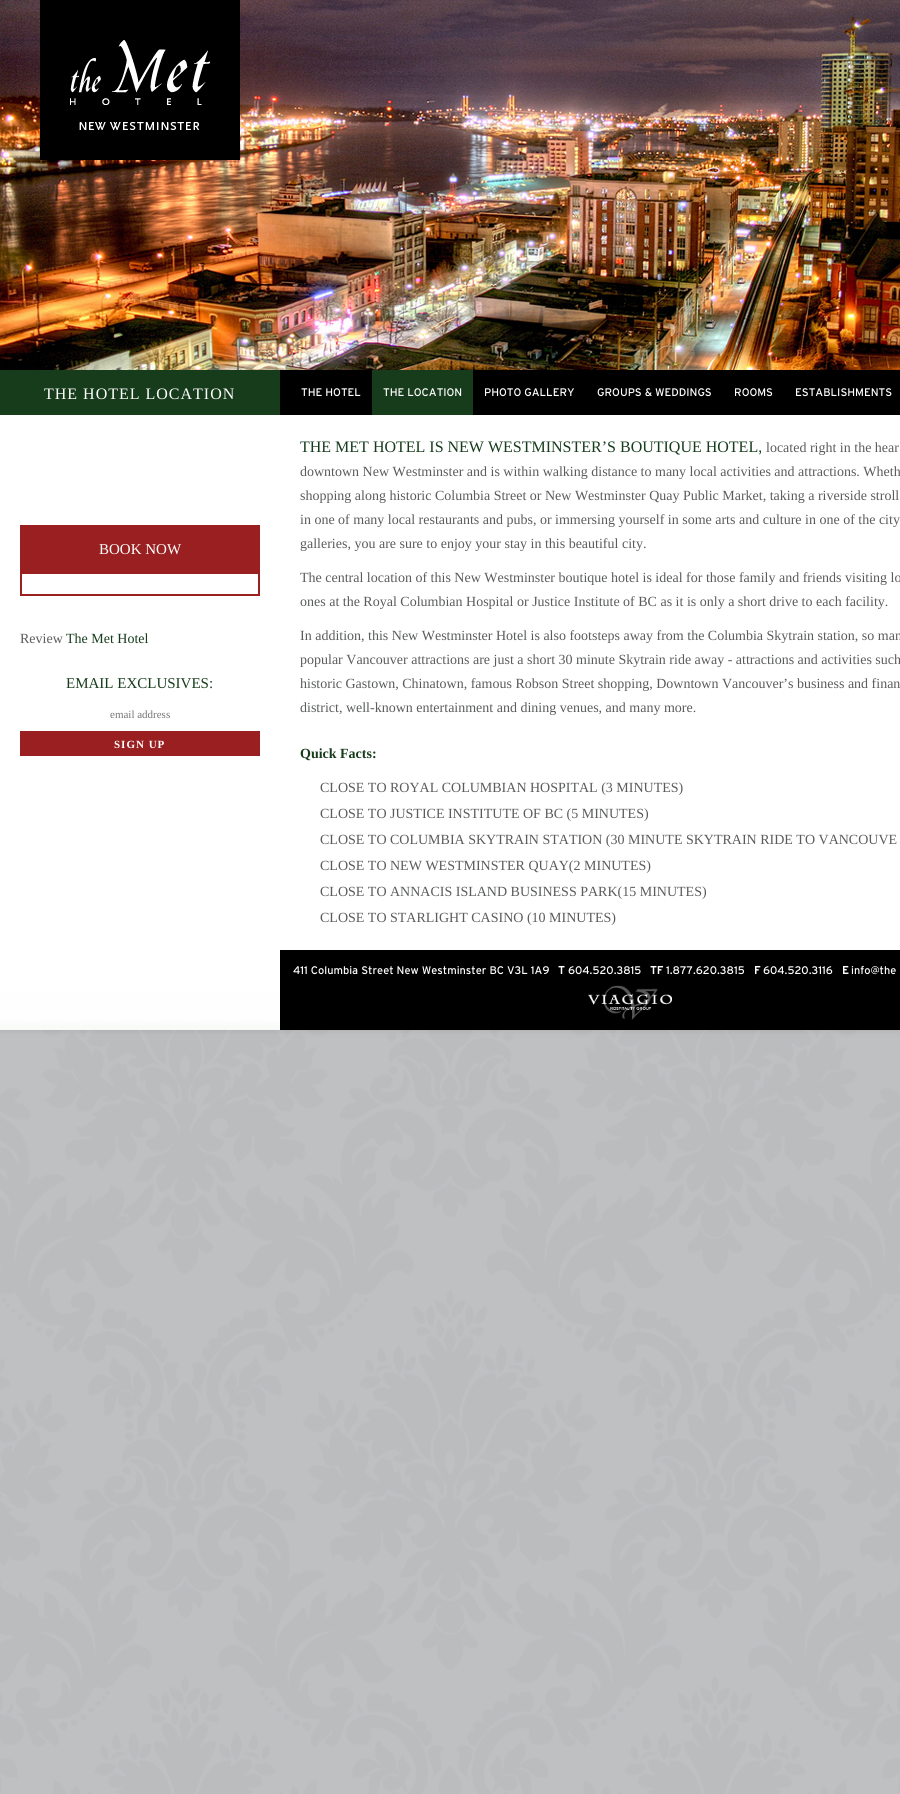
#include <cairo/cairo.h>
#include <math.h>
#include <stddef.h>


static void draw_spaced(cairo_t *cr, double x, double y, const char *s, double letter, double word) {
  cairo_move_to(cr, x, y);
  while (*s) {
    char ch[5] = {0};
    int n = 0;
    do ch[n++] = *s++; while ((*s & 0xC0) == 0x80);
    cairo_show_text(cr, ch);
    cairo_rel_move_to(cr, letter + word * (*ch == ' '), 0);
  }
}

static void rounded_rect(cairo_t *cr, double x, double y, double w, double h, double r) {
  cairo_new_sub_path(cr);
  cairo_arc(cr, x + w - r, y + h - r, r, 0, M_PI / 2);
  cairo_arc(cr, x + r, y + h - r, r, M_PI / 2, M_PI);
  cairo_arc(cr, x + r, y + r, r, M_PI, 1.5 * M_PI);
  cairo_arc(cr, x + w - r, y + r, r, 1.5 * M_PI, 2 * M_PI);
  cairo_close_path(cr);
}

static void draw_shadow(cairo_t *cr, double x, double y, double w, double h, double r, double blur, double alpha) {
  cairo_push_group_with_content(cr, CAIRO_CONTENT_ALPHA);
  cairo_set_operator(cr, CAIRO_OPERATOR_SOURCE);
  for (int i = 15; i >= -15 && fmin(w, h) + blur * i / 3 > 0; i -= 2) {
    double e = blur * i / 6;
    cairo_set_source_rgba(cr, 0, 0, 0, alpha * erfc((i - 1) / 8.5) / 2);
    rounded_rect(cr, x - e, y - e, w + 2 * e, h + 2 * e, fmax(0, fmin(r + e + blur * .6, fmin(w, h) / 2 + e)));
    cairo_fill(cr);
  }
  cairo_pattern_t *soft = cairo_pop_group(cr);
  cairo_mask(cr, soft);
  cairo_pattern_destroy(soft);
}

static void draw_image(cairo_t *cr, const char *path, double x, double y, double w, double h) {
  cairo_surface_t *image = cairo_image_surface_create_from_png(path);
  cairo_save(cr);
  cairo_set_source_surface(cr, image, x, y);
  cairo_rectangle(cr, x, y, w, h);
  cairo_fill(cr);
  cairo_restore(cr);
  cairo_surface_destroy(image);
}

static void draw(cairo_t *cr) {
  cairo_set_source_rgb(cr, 190 / 255.0, 192 / 255.0, 194 / 255.0);
  cairo_paint(cr);
  draw_image(cr, "images/1.png", 0, 1030, 900, 764);
  cairo_set_source_rgb(cr, 50 / 255.0, 50 / 255.0, 50 / 255.0);
  draw_shadow(cr, -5, -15, 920, 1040, 0, 5, 0.5);
  cairo_set_source_rgb(cr, 1, 1, 1);
  cairo_rectangle(cr, 280, 415, 620, 535);
  cairo_fill(cr);
  cairo_set_source_rgb(cr, 23 / 255.0, 60 / 255.0, 28 / 255.0);
  cairo_rectangle(cr, 0, 370, 280, 45);
  cairo_fill(cr);
  draw_image(cr, "images/2.png", 0, 415, 280, 615);
  cairo_set_source_rgb(cr, 153 / 255.0, 31 / 255.0, 32 / 255.0);
  cairo_rectangle(cr, 20, 525, 240, 49);
  cairo_fill(cr);
  cairo_rectangle(cr, 258, 574, 2, 22);
  cairo_fill(cr);
  cairo_rectangle(cr, 20, 594, 240, 2);
  cairo_fill(cr);
  cairo_rectangle(cr, 20, 574, 2, 22);
  cairo_fill(cr);
  cairo_rectangle(cr, 20, 731, 240, 25);
  cairo_fill(cr);
  draw_image(cr, "images/3.png", 0, 0, 900, 370);
  cairo_set_source_rgb(cr, 0, 0, 0);
  cairo_rectangle(cr, 40, 0, 200, 160);
  cairo_fill(cr);
  draw_image(cr, "images/4.png", 70, 40, 140, 90);
  cairo_rectangle(cr, 280, 370, 620, 45);
  cairo_fill(cr);
  cairo_set_source_rgb(cr, 23 / 255.0, 60 / 255.0, 28 / 255.0);
  cairo_rectangle(cr, 372, 370, 101, 45);
  cairo_fill(cr);
  cairo_set_source_rgb(cr, 0, 0, 0);
  cairo_rectangle(cr, 280, 950, 620, 80);
  cairo_fill(cr);
  draw_image(cr, "images/5.png", 588, 985, 84, 35);
  cairo_select_font_face(cr, "Liberation Serif", CAIRO_FONT_SLANT_NORMAL, CAIRO_FONT_WEIGHT_NORMAL);
  cairo_set_font_size(cr, 16);
  cairo_set_source_rgb(cr, 1, 1, 1);
  draw_spaced(cr, 44, 399, "THE HOTEL LOCATION", 1, 0);
  cairo_set_source_rgb(cr, 23 / 255.0, 60 / 255.0, 28 / 255.0);
  cairo_move_to(cr, 300, 452);
  cairo_show_text(cr, "THE MET HOTEL IS NEW WESTMINSTER’S BOUTIQUE HOTEL,");
  cairo_set_font_size(cr, 14);
  cairo_set_source_rgb(cr, 90 / 255.0, 92 / 255.0, 91 / 255.0);
  cairo_move_to(cr, 766, 452);
  cairo_show_text(cr, "located right in the hear");
  cairo_move_to(cr, 300, 476);
  cairo_show_text(cr, "downtown New Westminster and is within walking distance to many local activities and attractions. Wheth");
  cairo_move_to(cr, 300, 500);
  cairo_show_text(cr, "shopping along historic Columbia Street or New Westminster Quay Public Market, taking a riverside stroll");
  cairo_move_to(cr, 300, 524);
  cairo_show_text(cr, "in one of many local restaurants and pubs, or immersing yourself in some arts and culture in one of the city");
  cairo_move_to(cr, 300, 548);
  cairo_show_text(cr, "galleries, you are sure to enjoy your stay in this beautiful city.");
  cairo_move_to(cr, 300, 582);
  cairo_show_text(cr, "The central location of this New Westminster boutique hotel is ideal for those family and friends visiting lo");
  cairo_move_to(cr, 300, 606);
  cairo_show_text(cr, "ones at the Royal Columbian Hospital or Justice Institute of BC as it is only a short drive to each facility.");
  cairo_move_to(cr, 300, 640);
  cairo_show_text(cr, "In addition, this New Westminster Hotel is also footsteps away from the Columbia Skytrain station, so man");
  cairo_move_to(cr, 300, 664);
  cairo_show_text(cr, "popular Vancouver attractions are just a short 30 minute Skytrain ride away - attractions and activities such");
  cairo_move_to(cr, 300, 688);
  cairo_show_text(cr, "historic Gastown, Chinatown, famous Robson Street shopping, Downtown Vancouver’s business and finan");
  cairo_move_to(cr, 300, 712);
  cairo_show_text(cr, "district, well-known entertainment and dining venues, and many more.");
  cairo_select_font_face(cr, "Liberation Serif", CAIRO_FONT_SLANT_NORMAL, CAIRO_FONT_WEIGHT_BOLD);
  cairo_set_source_rgb(cr, 23 / 255.0, 60 / 255.0, 28 / 255.0);
  cairo_move_to(cr, 300, 758);
  cairo_show_text(cr, "Quick Facts:");
  cairo_select_font_face(cr, "Liberation Serif", CAIRO_FONT_SLANT_NORMAL, CAIRO_FONT_WEIGHT_NORMAL);
  cairo_set_source_rgb(cr, 90 / 255.0, 92 / 255.0, 91 / 255.0);
  cairo_move_to(cr, 320, 792);
  cairo_show_text(cr, "CLOSE TO ROYAL COLUMBIAN HOSPITAL (3 MINUTES)");
  cairo_move_to(cr, 320, 818);
  cairo_show_text(cr, "CLOSE TO JUSTICE INSTITUTE OF BC (5 MINUTES)");
  cairo_move_to(cr, 320, 844);
  cairo_show_text(cr, "CLOSE TO COLUMBIA SKYTRAIN STATION (30 MINUTE SKYTRAIN RIDE TO VANCOUVE");
  cairo_move_to(cr, 320, 870);
  cairo_show_text(cr, "CLOSE TO NEW WESTMINSTER QUAY(2 MINUTES)");
  cairo_move_to(cr, 320, 896);
  cairo_show_text(cr, "CLOSE TO ANNACIS ISLAND BUSINESS PARK(15 MINUTES)");
  cairo_move_to(cr, 320, 922);
  cairo_show_text(cr, "CLOSE TO STARLIGHT CASINO (10 MINUTES)");
  cairo_set_font_size(cr, 15);
  cairo_set_source_rgb(cr, 1, 1, 1);
  cairo_move_to(cr, 99, 554);
  cairo_show_text(cr, "BOOK NOW");
  cairo_set_font_size(cr, 14);
  cairo_set_source_rgb(cr, 90 / 255.0, 92 / 255.0, 91 / 255.0);
  cairo_move_to(cr, 20, 643);
  cairo_show_text(cr, "Review");
  cairo_set_source_rgb(cr, 23 / 255.0, 60 / 255.0, 28 / 255.0);
  cairo_move_to(cr, 66, 643);
  cairo_show_text(cr, "The Met Hotel");
  cairo_set_font_size(cr, 15);
  cairo_move_to(cr, 66, 688);
  cairo_show_text(cr, "EMAIL EXCLUSIVES:");
  cairo_set_font_size(cr, 11);
  cairo_set_source_rgb(cr, 117 / 255.0, 117 / 255.0, 117 / 255.0);
  cairo_move_to(cr, 110, 718);
  cairo_show_text(cr, "email address");
  cairo_select_font_face(cr, "Liberation Serif", CAIRO_FONT_SLANT_NORMAL, CAIRO_FONT_WEIGHT_BOLD);
  cairo_set_source_rgb(cr, 1, 1, 1);
  draw_spaced(cr, 114, 748, "SIGN UP", 1, 0);
  cairo_select_font_face(cr, "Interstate", CAIRO_FONT_SLANT_NORMAL, CAIRO_FONT_WEIGHT_NORMAL);
  cairo_move_to(cr, 301, 396);
  cairo_show_text(cr, "THE HOTEL");
  cairo_move_to(cr, 383, 396);
  cairo_show_text(cr, "THE LOCATION");
  cairo_move_to(cr, 484, 396);
  cairo_show_text(cr, "PHOTO GALLERY");
  cairo_move_to(cr, 597, 396);
  cairo_show_text(cr, "GROUPS & WEDDINGS");
  cairo_move_to(cr, 734, 396);
  cairo_show_text(cr, "ROOMS");
  cairo_move_to(cr, 795, 396);
  cairo_show_text(cr, "ESTABLISHMENTS");
  cairo_move_to(cr, 293, 974);
  cairo_show_text(cr, "411 Columbia Street New Westminster BC V3L 1A9");
  cairo_select_font_face(cr, "Interstate", CAIRO_FONT_SLANT_NORMAL, CAIRO_FONT_WEIGHT_BOLD);
  cairo_move_to(cr, 558, 974);
  cairo_show_text(cr, "T");
  cairo_select_font_face(cr, "Interstate", CAIRO_FONT_SLANT_NORMAL, CAIRO_FONT_WEIGHT_NORMAL);
  cairo_move_to(cr, 568, 974);
  cairo_show_text(cr, "604.520.3815");
  cairo_select_font_face(cr, "Interstate", CAIRO_FONT_SLANT_NORMAL, CAIRO_FONT_WEIGHT_BOLD);
  cairo_move_to(cr, 650, 974);
  cairo_show_text(cr, "TF");
  cairo_select_font_face(cr, "Interstate", CAIRO_FONT_SLANT_NORMAL, CAIRO_FONT_WEIGHT_NORMAL);
  cairo_move_to(cr, 666, 974);
  cairo_show_text(cr, "1.877.620.3815");
  cairo_select_font_face(cr, "Interstate", CAIRO_FONT_SLANT_NORMAL, CAIRO_FONT_WEIGHT_BOLD);
  cairo_move_to(cr, 754, 974);
  cairo_show_text(cr, "F");
  cairo_select_font_face(cr, "Interstate", CAIRO_FONT_SLANT_NORMAL, CAIRO_FONT_WEIGHT_NORMAL);
  cairo_move_to(cr, 763, 974);
  cairo_show_text(cr, "604.520.3116");
  cairo_select_font_face(cr, "Interstate", CAIRO_FONT_SLANT_NORMAL, CAIRO_FONT_WEIGHT_BOLD);
  cairo_move_to(cr, 842, 974);
  cairo_show_text(cr, "E");
  cairo_select_font_face(cr, "Interstate", CAIRO_FONT_SLANT_NORMAL, CAIRO_FONT_WEIGHT_NORMAL);
  cairo_move_to(cr, 851, 974);
  cairo_show_text(cr, "info@the");
}

int main(void) {
  cairo_surface_t *surface = cairo_image_surface_create(CAIRO_FORMAT_RGB24, 900, 1794);
  cairo_t *cr = cairo_create(surface);
  cairo_font_options_t *options = cairo_font_options_create();
  cairo_font_options_set_hint_metrics(options, CAIRO_HINT_METRICS_OFF);
  cairo_font_options_set_hint_style(options, CAIRO_HINT_STYLE_NONE);
  cairo_set_font_options(cr, options);
  cairo_set_miter_limit(cr, 4);
  draw(cr);
  cairo_surface_write_to_png(surface, "out.png");
  cairo_font_options_destroy(options);
  cairo_destroy(cr);
  cairo_surface_destroy(surface);
  return 0;
}
